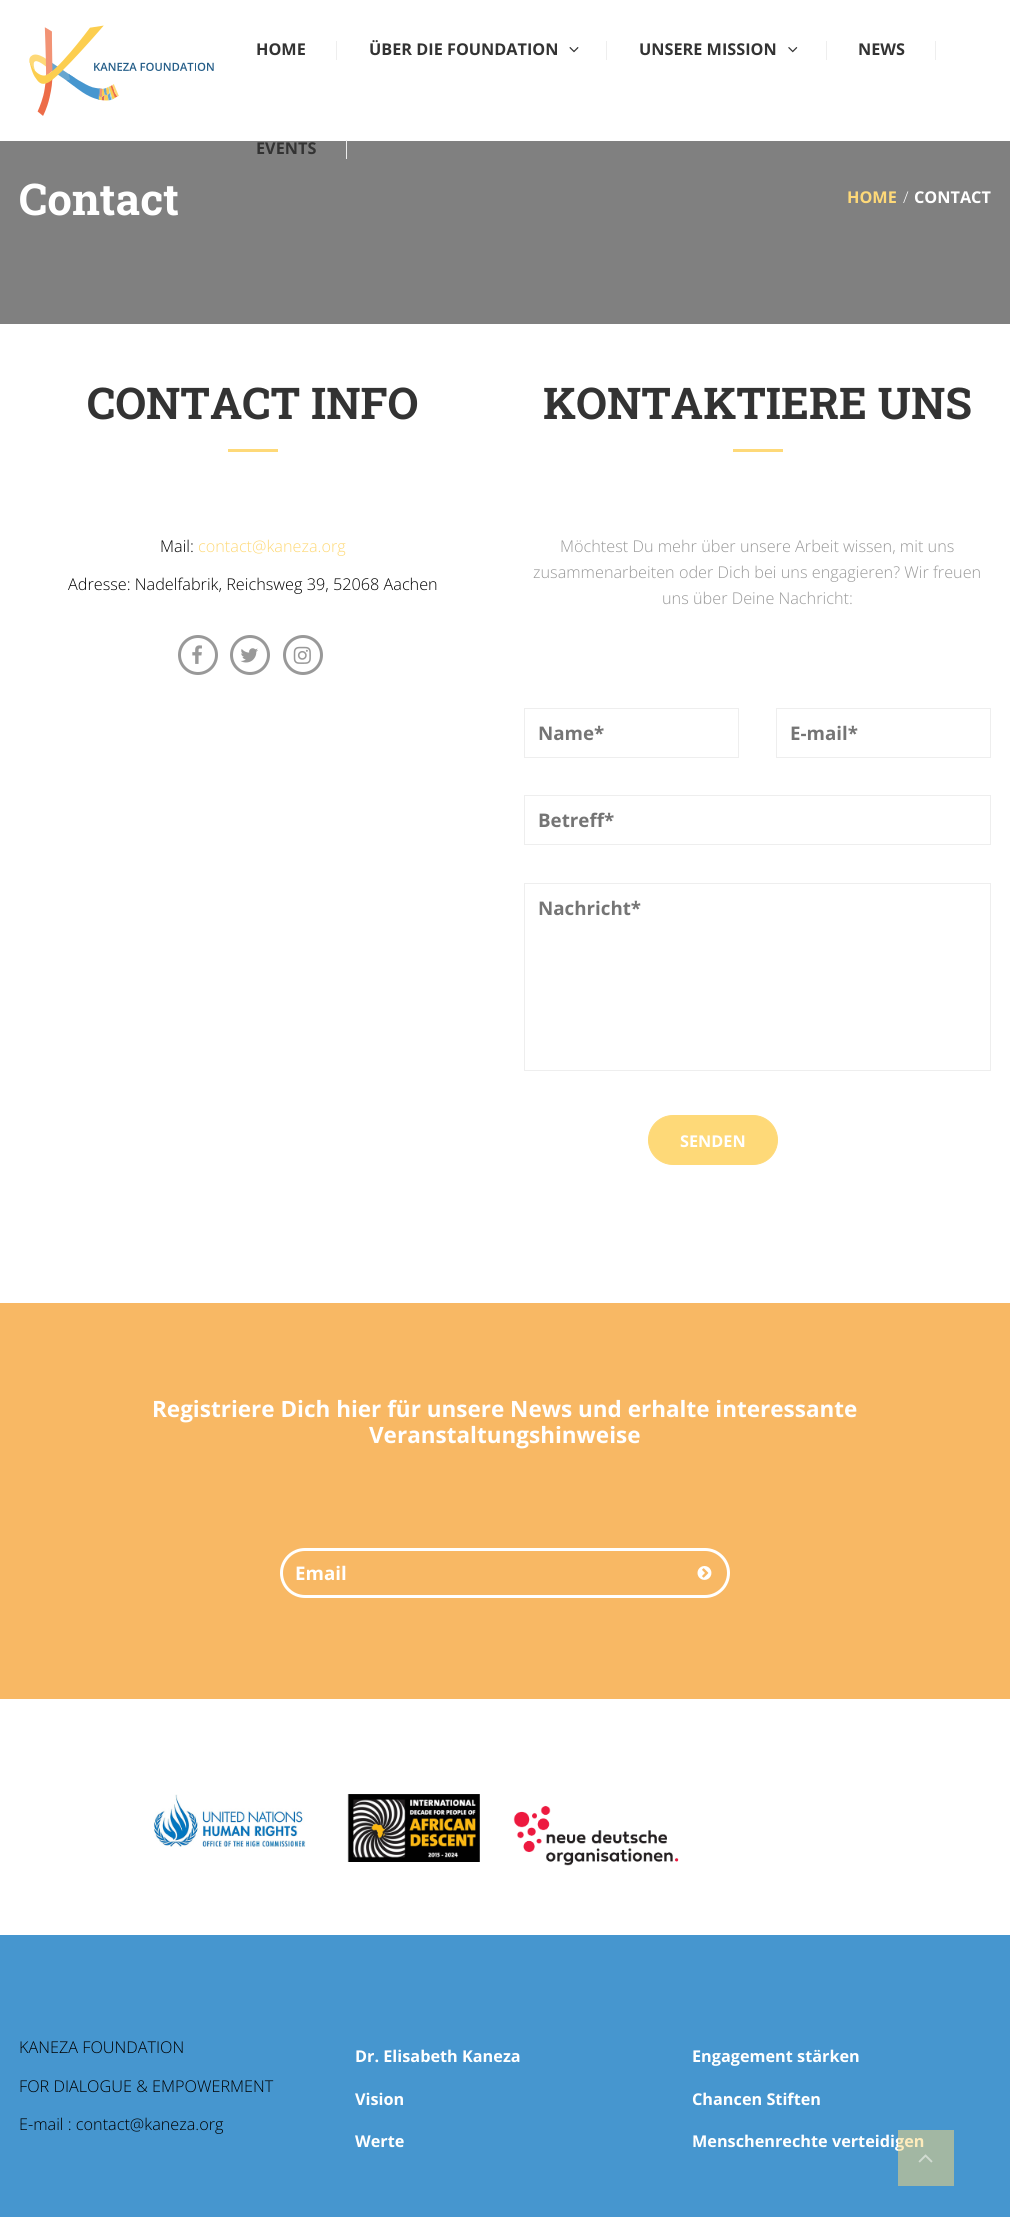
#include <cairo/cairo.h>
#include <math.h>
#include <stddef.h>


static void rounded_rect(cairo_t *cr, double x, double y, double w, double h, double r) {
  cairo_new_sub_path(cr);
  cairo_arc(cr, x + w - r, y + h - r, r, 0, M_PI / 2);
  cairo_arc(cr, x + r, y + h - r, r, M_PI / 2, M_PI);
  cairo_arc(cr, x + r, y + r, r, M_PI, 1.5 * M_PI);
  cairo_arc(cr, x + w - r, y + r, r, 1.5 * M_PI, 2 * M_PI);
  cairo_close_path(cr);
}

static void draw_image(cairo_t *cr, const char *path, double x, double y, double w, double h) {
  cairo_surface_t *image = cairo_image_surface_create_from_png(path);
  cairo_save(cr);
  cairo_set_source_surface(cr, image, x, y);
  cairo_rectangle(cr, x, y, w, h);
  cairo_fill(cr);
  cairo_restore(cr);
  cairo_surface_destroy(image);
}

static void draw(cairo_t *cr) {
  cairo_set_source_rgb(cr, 1, 1, 1);
  cairo_paint(cr);
  draw_image(cr, "images/1.png", 29, 25, 185, 91);
  cairo_set_source_rgb(cr, 238 / 255.0, 238 / 255.0, 238 / 255.0);
  cairo_rectangle(cr, 336, 41, 1, 19);
  cairo_fill(cr);
  cairo_rectangle(cr, 606, 41, 1, 19);
  cairo_fill(cr);
  draw_image(cr, "images/2.png", 569, 47, 10, 6);
  cairo_rectangle(cr, 826, 41, 1, 19);
  cairo_fill(cr);
  draw_image(cr, "images/3.png", 788, 47, 10, 6);
  cairo_rectangle(cr, 935, 41, 1, 19);
  cairo_fill(cr);
  cairo_set_source_rgb(cr, 128 / 255.0, 128 / 255.0, 128 / 255.0);
  cairo_rectangle(cr, 0, 141, 1010, 183);
  cairo_fill(cr);
  cairo_set_source_rgb(cr, 238 / 255.0, 238 / 255.0, 238 / 255.0);
  cairo_rectangle(cr, 346, 140, 1, 19);
  cairo_fill(cr);
  cairo_set_source_rgb(cr, 254 / 255.0, 217 / 255.0, 120 / 255.0);
  cairo_rectangle(cr, 228, 449, 50, 3);
  cairo_fill(cr);
  cairo_arc(cr, 198, 655, 18.5, 0, 2 * M_PI);
  cairo_set_source_rgb(cr, 153 / 255.0, 153 / 255.0, 153 / 255.0);
  cairo_set_line_width(cr, 3);
  cairo_stroke(cr);
  draw_image(cr, "images/4.png", 192, 645, 10, 19);
  cairo_arc(cr, 250, 655, 18.5, 0, 2 * M_PI);
  cairo_stroke(cr);
  draw_image(cr, "images/5.png", 240, 648, 18, 15);
  cairo_arc(cr, 303, 655, 18.5, 0, 2 * M_PI);
  cairo_stroke(cr);
  draw_image(cr, "images/6.png", 293, 646, 18, 18);
  cairo_set_source_rgb(cr, 254 / 255.0, 217 / 255.0, 120 / 255.0);
  cairo_rectangle(cr, 733, 449, 50, 3);
  cairo_fill(cr);
  cairo_rectangle(cr, 524.5, 708.5, 214, 49);
  cairo_set_source_rgb(cr, 238 / 255.0, 238 / 255.0, 238 / 255.0);
  cairo_set_line_width(cr, 1);
  cairo_stroke(cr);
  cairo_rectangle(cr, 776.5, 708.5, 214, 49);
  cairo_stroke(cr);
  cairo_rectangle(cr, 524.5, 795.5, 466, 49);
  cairo_stroke(cr);
  cairo_rectangle(cr, 524.5, 883.5, 466, 187);
  cairo_stroke(cr);
  cairo_set_source_rgb(cr, 254 / 255.0, 217 / 255.0, 120 / 255.0);
  rounded_rect(cr, 648.5, 1115.5, 129, 49, 24.5);
  cairo_fill_preserve(cr);
  cairo_stroke(cr);
  cairo_set_source_rgb(cr, 248 / 255.0, 184 / 255.0, 100 / 255.0);
  cairo_rectangle(cr, 0, 1303, 1010, 396);
  cairo_fill(cr);
  rounded_rect(cr, 281.5, 1549.5, 447, 47, 23.5);
  cairo_set_source_rgb(cr, 1, 1, 1);
  cairo_set_line_width(cr, 3);
  cairo_stroke(cr);
  draw_image(cr, "images/7.png", 697, 1566, 15, 14);
  cairo_set_source_rgb(cr, 70 / 255.0, 150 / 255.0, 207 / 255.0);
  cairo_rectangle(cr, 0, 1935, 1010, 282);
  cairo_fill(cr);
  draw_image(cr, "images/8.png", 153, 1794, 153, 53);
  draw_image(cr, "images/9.png", 347, 1794, 133, 68);
  draw_image(cr, "images/10.png", 513, 1805, 166, 61);
  cairo_select_font_face(cr, "Open Sans", CAIRO_FONT_SLANT_NORMAL, CAIRO_FONT_WEIGHT_BOLD);
  cairo_set_font_size(cr, 16.25);
  cairo_set_source_rgb(cr, 51 / 255.0, 51 / 255.0, 51 / 255.0);
  cairo_move_to(cr, 256, 55);
  cairo_show_text(cr, "HOME");
  cairo_move_to(cr, 369, 55);
  cairo_show_text(cr, "ÜBER DIE FOUNDATION");
  cairo_move_to(cr, 639, 55);
  cairo_show_text(cr, "UNSERE MISSION");
  cairo_move_to(cr, 858, 55);
  cairo_show_text(cr, "NEWS");
  cairo_move_to(cr, 256, 154);
  cairo_show_text(cr, "EVENTS");
  cairo_select_font_face(cr, "Roboto Slab", CAIRO_FONT_SLANT_NORMAL, CAIRO_FONT_WEIGHT_BOLD);
  cairo_set_font_size(cr, 43.75);
  cairo_set_source_rgb(cr, 1, 1, 1);
  cairo_move_to(cr, 19, 215);
  cairo_show_text(cr, "Contact");
  cairo_select_font_face(cr, "Open Sans", CAIRO_FONT_SLANT_NORMAL, CAIRO_FONT_WEIGHT_BOLD);
  cairo_set_font_size(cr, 16.25);
  cairo_set_source_rgb(cr, 254 / 255.0, 217 / 255.0, 120 / 255.0);
  cairo_move_to(cr, 847, 203);
  cairo_show_text(cr, "HOME");
  cairo_select_font_face(cr, "Open Sans Light", CAIRO_FONT_SLANT_NORMAL, CAIRO_FONT_WEIGHT_NORMAL);
  cairo_set_source_rgb(cr, 1, 1, 1);
  cairo_move_to(cr, 903, 203);
  cairo_show_text(cr, "/");
  cairo_select_font_face(cr, "Open Sans", CAIRO_FONT_SLANT_NORMAL, CAIRO_FONT_WEIGHT_BOLD);
  cairo_move_to(cr, 914, 203);
  cairo_show_text(cr, "CONTACT");
  cairo_select_font_face(cr, "Roboto Slab", CAIRO_FONT_SLANT_NORMAL, CAIRO_FONT_WEIGHT_BOLD);
  cairo_set_font_size(cr, 43.75);
  cairo_set_source_rgb(cr, 51 / 255.0, 51 / 255.0, 51 / 255.0);
  cairo_move_to(cr, 87, 419);
  cairo_show_text(cr, "CONTACT INFO");
  cairo_select_font_face(cr, "Open Sans Light", CAIRO_FONT_SLANT_NORMAL, CAIRO_FONT_WEIGHT_NORMAL);
  cairo_set_font_size(cr, 16.25);
  cairo_set_source_rgb(cr, 0, 0, 0);
  cairo_move_to(cr, 160, 552);
  cairo_show_text(cr, "Mail:");
  cairo_set_source_rgb(cr, 254 / 255.0, 217 / 255.0, 120 / 255.0);
  cairo_move_to(cr, 198, 552);
  cairo_show_text(cr, "contact@kaneza.org");
  cairo_set_source_rgb(cr, 0, 0, 0);
  cairo_move_to(cr, 68, 590);
  cairo_show_text(cr, "Adresse: Nadelfabrik, Reichsweg 39, 52068 Aachen");
  cairo_select_font_face(cr, "Roboto Slab", CAIRO_FONT_SLANT_NORMAL, CAIRO_FONT_WEIGHT_BOLD);
  cairo_set_font_size(cr, 43.75);
  cairo_set_source_rgb(cr, 51 / 255.0, 51 / 255.0, 51 / 255.0);
  cairo_move_to(cr, 543, 419);
  cairo_show_text(cr, "KONTAKTIERE UNS");
  cairo_select_font_face(cr, "Open Sans Light", CAIRO_FONT_SLANT_NORMAL, CAIRO_FONT_WEIGHT_NORMAL);
  cairo_set_font_size(cr, 16.25);
  cairo_set_source_rgb(cr, 153 / 255.0, 153 / 255.0, 153 / 255.0);
  cairo_move_to(cr, 560, 552);
  cairo_show_text(cr, "Möchtest Du mehr über unsere Arbeit wissen, mit uns");
  cairo_move_to(cr, 533, 578);
  cairo_show_text(cr, "zusammenarbeiten oder Dich bei uns engagieren? Wir freuen");
  cairo_move_to(cr, 662, 604);
  cairo_show_text(cr, "uns über Deine Nachricht:");
  cairo_select_font_face(cr, "Open Sans", CAIRO_FONT_SLANT_NORMAL, CAIRO_FONT_WEIGHT_BOLD);
  cairo_set_font_size(cr, 18.75);
  cairo_set_source_rgb(cr, 117 / 255.0, 117 / 255.0, 117 / 255.0);
  cairo_move_to(cr, 538, 740);
  cairo_show_text(cr, "Name*");
  cairo_move_to(cr, 790, 740);
  cairo_show_text(cr, "E-mail*");
  cairo_move_to(cr, 538, 827);
  cairo_show_text(cr, "Betreff*");
  cairo_move_to(cr, 538, 915);
  cairo_show_text(cr, "Nachricht*");
  cairo_set_font_size(cr, 16.25);
  cairo_set_source_rgb(cr, 1, 1, 1);
  cairo_move_to(cr, 680, 1147);
  cairo_show_text(cr, "SENDEN");
  cairo_set_font_size(cr, 22.5);
  cairo_move_to(cr, 152, 1417);
  cairo_show_text(cr, "Registriere Dich hier für unsere News und erhalte interessante");
  cairo_move_to(cr, 369, 1443);
  cairo_show_text(cr, "Veranstaltungshinweise");
  cairo_set_font_size(cr, 18.75);
  cairo_move_to(cr, 295, 1580);
  cairo_show_text(cr, "Email");
  cairo_select_font_face(cr, "Open Sans Light", CAIRO_FONT_SLANT_NORMAL, CAIRO_FONT_WEIGHT_NORMAL);
  cairo_set_font_size(cr, 16.25);
  cairo_set_source_rgb(cr, 0, 0, 0);
  cairo_move_to(cr, 19, 2053);
  cairo_show_text(cr, "KANEZA FOUNDATION");
  cairo_move_to(cr, 19, 2092);
  cairo_show_text(cr, "FOR DIALOGUE & EMPOWERMENT");
  cairo_move_to(cr, 19, 2130);
  cairo_show_text(cr, "E-mail : contact@kaneza.org");
  cairo_select_font_face(cr, "Open Sans", CAIRO_FONT_SLANT_NORMAL, CAIRO_FONT_WEIGHT_BOLD);
  cairo_set_source_rgb(cr, 1, 1, 1);
  cairo_move_to(cr, 355, 2062);
  cairo_show_text(cr, "Dr. Elisabeth Kaneza");
  cairo_move_to(cr, 355, 2105);
  cairo_show_text(cr, "Vision");
  cairo_move_to(cr, 355, 2147);
  cairo_show_text(cr, "Werte");
  cairo_move_to(cr, 692, 2062);
  cairo_show_text(cr, "Engagement stärken");
  cairo_move_to(cr, 692, 2105);
  cairo_show_text(cr, "Chancen Stiften");
  cairo_move_to(cr, 692, 2147);
  cairo_show_text(cr, "Menschenrechte verteidigen");
  cairo_set_source_rgba(cr, 254 / 255.0, 217 / 255.0, 120 / 255.0, 0.5);
  cairo_rectangle(cr, 898, 2130, 56, 56);
  cairo_fill(cr);
  draw_image(cr, "images/11.png", 918, 2154, 15, 9);
}

int main(void) {
  cairo_surface_t *surface = cairo_image_surface_create(CAIRO_FORMAT_RGB24, 1010, 2217);
  cairo_t *cr = cairo_create(surface);
  cairo_font_options_t *options = cairo_font_options_create();
  cairo_font_options_set_hint_metrics(options, CAIRO_HINT_METRICS_OFF);
  cairo_font_options_set_hint_style(options, CAIRO_HINT_STYLE_NONE);
  cairo_set_font_options(cr, options);
  cairo_set_miter_limit(cr, 4);
  draw(cr);
  cairo_surface_write_to_png(surface, "out.png");
  cairo_font_options_destroy(options);
  cairo_destroy(cr);
  cairo_surface_destroy(surface);
  return 0;
}
